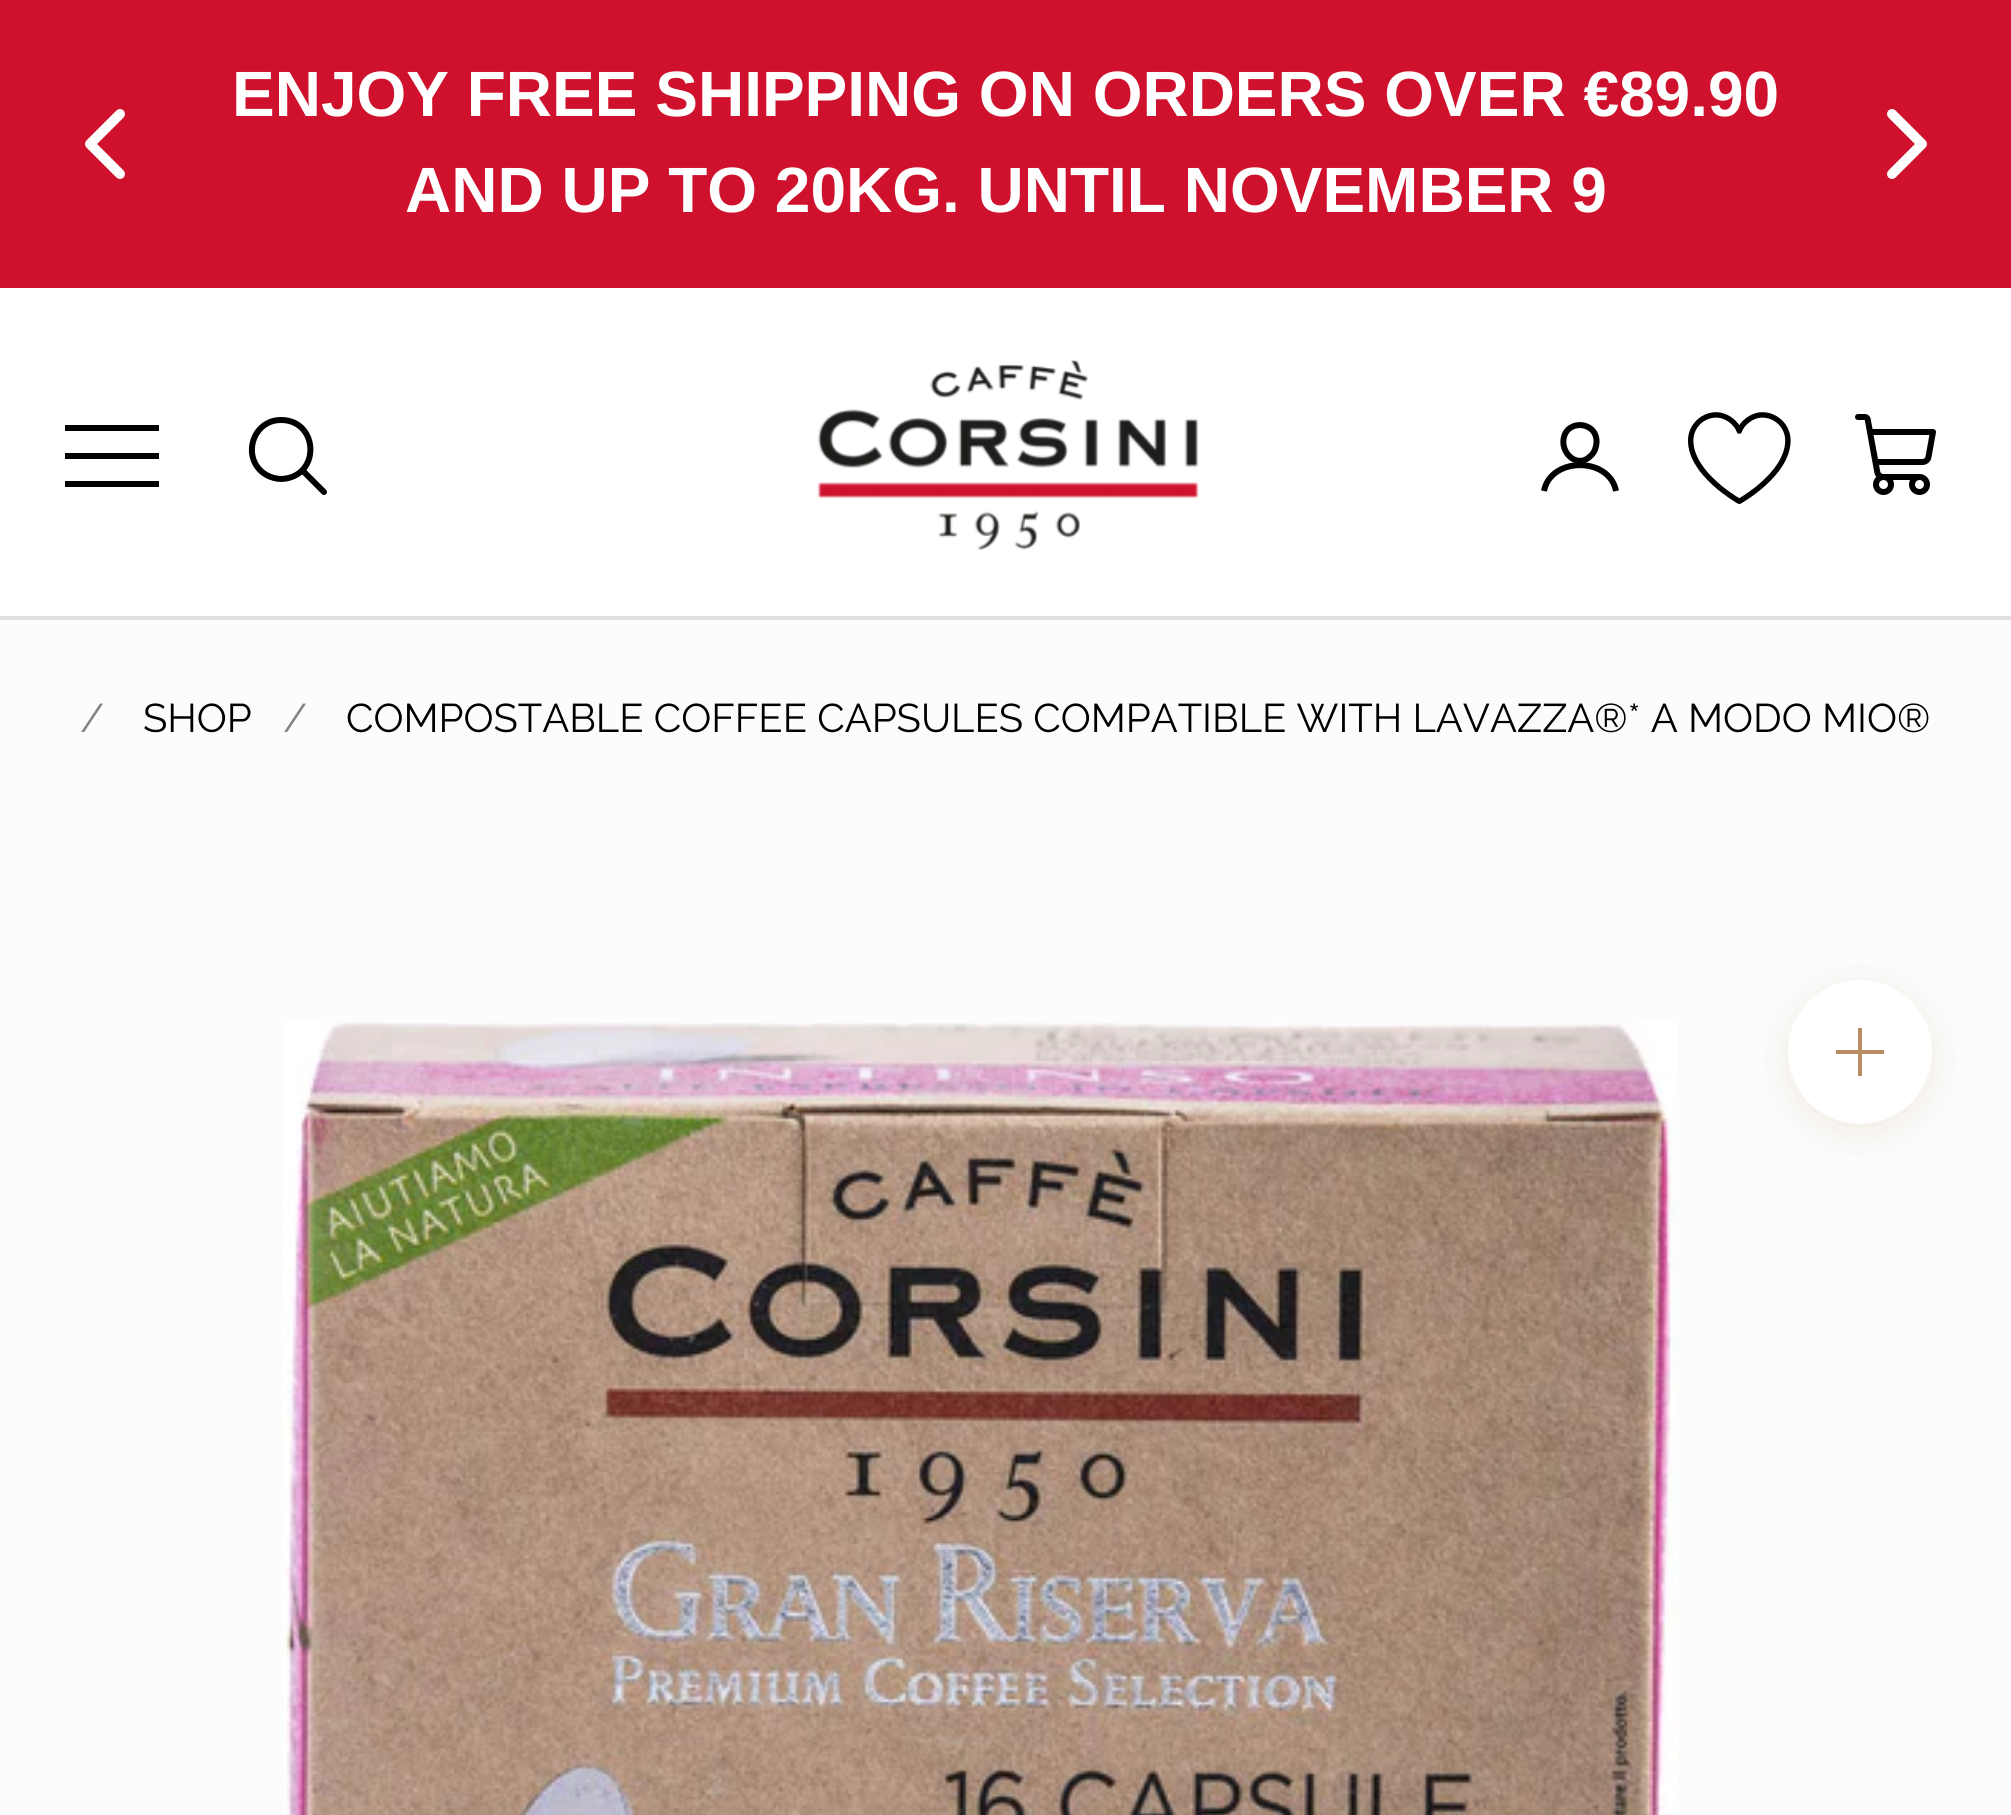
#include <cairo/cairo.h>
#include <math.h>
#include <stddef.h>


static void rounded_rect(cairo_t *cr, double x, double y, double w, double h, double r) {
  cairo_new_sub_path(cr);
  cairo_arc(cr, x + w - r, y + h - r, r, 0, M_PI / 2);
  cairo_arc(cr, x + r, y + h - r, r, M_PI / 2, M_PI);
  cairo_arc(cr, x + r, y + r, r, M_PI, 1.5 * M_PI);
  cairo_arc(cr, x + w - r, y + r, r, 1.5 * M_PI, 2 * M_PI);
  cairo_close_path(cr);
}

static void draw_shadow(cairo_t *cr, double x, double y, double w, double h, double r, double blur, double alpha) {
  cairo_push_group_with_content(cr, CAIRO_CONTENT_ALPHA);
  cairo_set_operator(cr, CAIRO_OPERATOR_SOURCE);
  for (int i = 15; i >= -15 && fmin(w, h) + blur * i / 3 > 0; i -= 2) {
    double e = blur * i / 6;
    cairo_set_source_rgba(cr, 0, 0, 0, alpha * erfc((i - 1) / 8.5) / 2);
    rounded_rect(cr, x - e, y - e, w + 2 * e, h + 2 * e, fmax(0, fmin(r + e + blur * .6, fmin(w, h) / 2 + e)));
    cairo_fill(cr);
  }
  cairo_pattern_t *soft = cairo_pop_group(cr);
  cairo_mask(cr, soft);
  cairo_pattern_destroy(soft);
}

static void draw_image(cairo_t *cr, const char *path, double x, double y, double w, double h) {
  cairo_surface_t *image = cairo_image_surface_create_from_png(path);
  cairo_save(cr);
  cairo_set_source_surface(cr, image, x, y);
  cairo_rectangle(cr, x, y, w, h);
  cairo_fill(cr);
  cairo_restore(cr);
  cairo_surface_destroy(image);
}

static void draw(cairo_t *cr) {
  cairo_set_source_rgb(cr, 252 / 255.0, 252 / 255.0, 252 / 255.0);
  cairo_paint(cr);
  cairo_set_source_rgb(cr, 207 / 255.0, 17 / 255.0, 45 / 255.0);
  cairo_rectangle(cr, 0, 0, 2011, 288);
  cairo_fill(cr);
  draw_image(cr, "images/1.png", 85, 109, 40, 70);
  draw_image(cr, "images/2.png", 1887, 109, 40, 70);
  cairo_set_source_rgb(cr, 1, 1, 1);
  cairo_rectangle(cr, 0, 288, 2011, 328);
  cairo_fill(cr);
  cairo_set_source_rgb(cr, 224 / 255.0, 224 / 255.0, 224 / 255.0);
  cairo_rectangle(cr, 0, 616, 2011, 4);
  cairo_fill(cr);
  cairo_new_path(cr);
  cairo_move_to(cr, 68, 484);
  cairo_line_to(cr, 156, 484);
  cairo_move_to(cr, 68, 456);
  cairo_line_to(cr, 156, 456);
  cairo_move_to(cr, 68, 428);
  cairo_line_to(cr, 156, 428);
  cairo_set_source_rgb(cr, 0, 0, 0);
  cairo_set_line_width(cr, 6);
  cairo_set_line_cap(cr, CAIRO_LINE_CAP_SQUARE);
  cairo_stroke(cr);
  cairo_new_path(cr);
  cairo_move_to(cr, 281.5, 420);
  cairo_curve_to(cr, 251.5, 419.5, 240.5, 460, 266.5, 475);
  cairo_curve_to(cr, 271, 477.5, 276.5, 479, 281.5, 479);
  cairo_curve_to(cr, 321, 477, 319, 420.5, 281.5, 420);
  cairo_close_path(cr);
  cairo_set_line_cap(cr, CAIRO_LINE_CAP_BUTT);
  cairo_stroke(cr);
  cairo_new_path(cr);
  cairo_move_to(cr, 303.5, 471.5);
  cairo_line_to(cr, 324, 492);
  cairo_set_line_cap(cr, CAIRO_LINE_CAP_ROUND);
  cairo_stroke(cr);
  draw_image(cr, "images/3.png", 817, 359, 382, 192);
  cairo_new_path(cr);
  cairo_move_to(cr, 1596.5, 443);
  cairo_curve_to(cr, 1596, 447.5, 1594.5, 452.5, 1591, 455.5);
  cairo_curve_to(cr, 1578.5, 469, 1561.5, 454.5, 1563.5, 439.5);
  cairo_curve_to(cr, 1566, 418.5, 1598, 421, 1596.5, 443);
  cairo_close_path(cr);
  cairo_set_line_join(cr, CAIRO_LINE_JOIN_ROUND);
  cairo_stroke(cr);
  cairo_new_path(cr);
  cairo_move_to(cr, 1544, 491);
  cairo_curve_to(cr, 1550.5, 456.5, 1609.5, 456.5, 1616, 491);
  cairo_set_line_cap(cr, CAIRO_LINE_CAP_BUTT);
  cairo_set_line_join(cr, CAIRO_LINE_JOIN_MITER);
  cairo_stroke(cr);
  draw_image(cr, "images/4.png", 1688, 412, 103, 92);
  draw_image(cr, "images/5.png", 1855, 414, 81, 81);
  draw_image(cr, "images/6.png", 283, 1022, 1395, 793);
  cairo_set_source_rgb(cr, 185 / 255.0, 142 / 255.0, 99 / 255.0);
  draw_shadow(cr, 1788, 988, 144, 144, 72, 20, 0.15);
  cairo_set_source_rgb(cr, 1, 1, 1);
  cairo_arc(cr, 1860, 1052, 72, 0, 2 * M_PI);
  cairo_fill(cr);
  cairo_new_path(cr);
  cairo_move_to(cr, 1860, 1028);
  cairo_line_to(cr, 1860, 1076);
  cairo_move_to(cr, 1836, 1052);
  cairo_line_to(cr, 1884, 1052);
  cairo_set_source_rgb(cr, 185 / 255.0, 142 / 255.0, 99 / 255.0);
  cairo_set_line_width(cr, 4);
  cairo_stroke(cr);
  cairo_select_font_face(cr, "Liberation Sans", CAIRO_FONT_SLANT_NORMAL, CAIRO_FONT_WEIGHT_BOLD);
  cairo_set_font_size(cr, 64);
  cairo_set_source_rgb(cr, 1, 1, 1);
  cairo_move_to(cr, 232, 116);
  cairo_show_text(cr, "ENJOY FREE SHIPPING ON ORDERS OVER €89.90");
  cairo_move_to(cr, 405, 212);
  cairo_show_text(cr, "AND UP TO 20KG. UNTIL NOVEMBER 9");
  cairo_select_font_face(cr, "Raleway", CAIRO_FONT_SLANT_NORMAL, CAIRO_FONT_WEIGHT_NORMAL);
  cairo_set_font_size(cr, 40);
  cairo_set_source_rgb(cr, 132 / 255.0, 132 / 255.0, 132 / 255.0);
  cairo_move_to(cr, 80, 732);
  cairo_show_text(cr, "/");
  cairo_set_source_rgb(cr, 0, 0, 0);
  cairo_move_to(cr, 143, 732);
  cairo_show_text(cr, "SHOP");
  cairo_set_source_rgb(cr, 132 / 255.0, 132 / 255.0, 132 / 255.0);
  cairo_move_to(cr, 283, 732);
  cairo_show_text(cr, "/");
  cairo_set_source_rgb(cr, 0, 0, 0);
  cairo_move_to(cr, 346, 732);
  cairo_show_text(cr, "COMPOSTABLE COFFEE CAPSULES COMPATIBLE WITH LAVAZZA®* A MODO MIO®");
}

int main(void) {
  cairo_surface_t *surface = cairo_image_surface_create(CAIRO_FORMAT_RGB24, 2011, 1815);
  cairo_t *cr = cairo_create(surface);
  cairo_font_options_t *options = cairo_font_options_create();
  cairo_font_options_set_hint_metrics(options, CAIRO_HINT_METRICS_OFF);
  cairo_font_options_set_hint_style(options, CAIRO_HINT_STYLE_NONE);
  cairo_set_font_options(cr, options);
  cairo_set_miter_limit(cr, 4);
  draw(cr);
  cairo_surface_write_to_png(surface, "out.png");
  cairo_font_options_destroy(options);
  cairo_destroy(cr);
  cairo_surface_destroy(surface);
  return 0;
}
